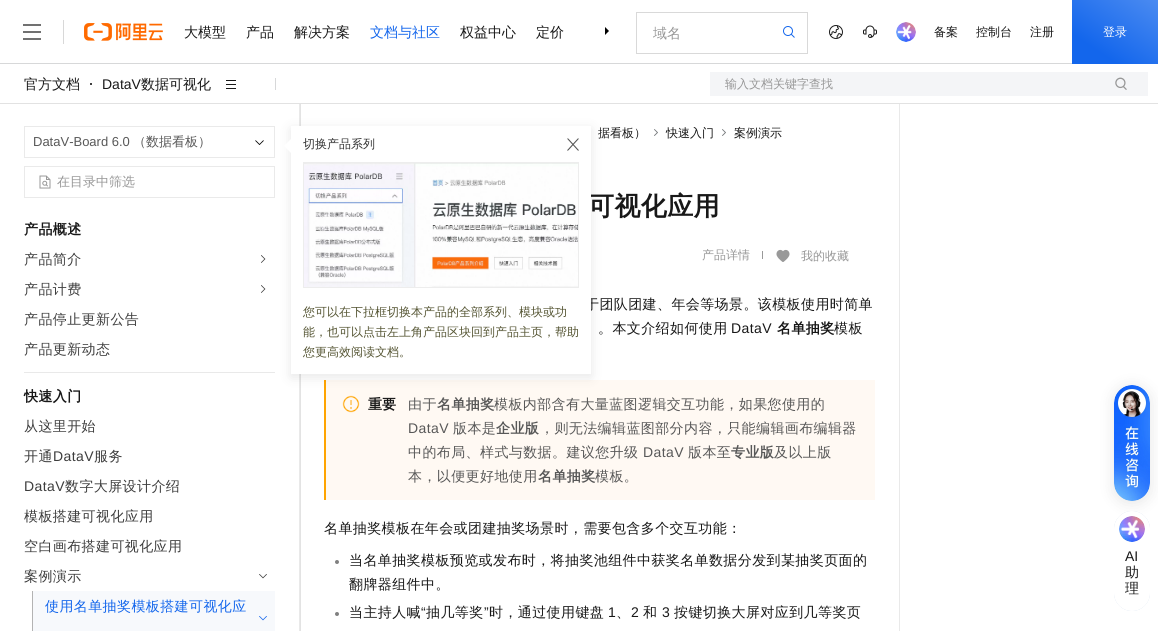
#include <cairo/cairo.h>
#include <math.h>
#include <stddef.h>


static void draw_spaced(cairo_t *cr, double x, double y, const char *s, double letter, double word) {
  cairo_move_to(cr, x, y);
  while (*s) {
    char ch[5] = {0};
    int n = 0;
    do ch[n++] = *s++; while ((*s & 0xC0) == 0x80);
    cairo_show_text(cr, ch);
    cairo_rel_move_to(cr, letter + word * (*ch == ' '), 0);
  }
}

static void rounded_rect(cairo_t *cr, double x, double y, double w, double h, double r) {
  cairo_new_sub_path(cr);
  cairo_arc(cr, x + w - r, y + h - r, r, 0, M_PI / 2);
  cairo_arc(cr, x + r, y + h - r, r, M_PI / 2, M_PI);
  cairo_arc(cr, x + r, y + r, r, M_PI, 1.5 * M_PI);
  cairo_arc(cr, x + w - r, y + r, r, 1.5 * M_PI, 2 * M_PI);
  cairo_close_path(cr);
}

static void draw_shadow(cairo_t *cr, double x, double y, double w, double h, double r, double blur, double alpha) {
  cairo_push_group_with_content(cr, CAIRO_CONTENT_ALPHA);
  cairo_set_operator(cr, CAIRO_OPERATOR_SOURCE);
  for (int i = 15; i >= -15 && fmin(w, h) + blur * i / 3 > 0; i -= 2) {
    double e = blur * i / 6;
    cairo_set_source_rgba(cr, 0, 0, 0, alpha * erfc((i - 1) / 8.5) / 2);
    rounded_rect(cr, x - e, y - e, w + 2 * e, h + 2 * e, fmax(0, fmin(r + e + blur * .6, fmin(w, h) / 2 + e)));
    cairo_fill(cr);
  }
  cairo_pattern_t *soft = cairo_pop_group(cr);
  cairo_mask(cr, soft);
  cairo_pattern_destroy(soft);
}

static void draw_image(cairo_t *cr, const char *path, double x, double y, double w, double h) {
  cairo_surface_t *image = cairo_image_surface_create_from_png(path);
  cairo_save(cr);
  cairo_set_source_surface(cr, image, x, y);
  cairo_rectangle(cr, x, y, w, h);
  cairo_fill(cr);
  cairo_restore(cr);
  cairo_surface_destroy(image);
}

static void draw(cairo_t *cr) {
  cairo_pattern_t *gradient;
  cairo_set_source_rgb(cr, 1, 1, 1);
  cairo_paint(cr);
  cairo_set_source_rgb(cr, 215 / 255.0, 216 / 255.0, 217 / 255.0);
  cairo_rectangle(cr, 0, 63, 1072, 1);
  cairo_fill(cr);
  cairo_set_source_rgb(cr, 113 / 255.0, 113 / 255.0, 113 / 255.0);
  cairo_rectangle(cr, 23, 24, 18, 2);
  cairo_fill(cr);
  cairo_rectangle(cr, 23, 31, 18, 2);
  cairo_fill(cr);
  cairo_rectangle(cr, 23, 38, 18, 2);
  cairo_fill(cr);
  cairo_set_source_rgb(cr, 216 / 255.0, 216 / 255.0, 216 / 255.0);
  cairo_rectangle(cr, 63, 20, 1, 24);
  cairo_fill(cr);
  draw_image(cr, "images/1.png", 84, 23, 79, 18);
  cairo_set_source_rgb(cr, 0, 0, 0);
  cairo_new_path(cr);
  cairo_move_to(cr, 605, 27);
  cairo_line_to(cr, 609, 31);
  cairo_line_to(cr, 605, 35);
  cairo_close_path(cr);
  cairo_fill(cr);
  cairo_rectangle(cr, 636.5, 12.5, 171, 41);
  cairo_set_source_rgb(cr, 217 / 255.0, 217 / 255.0, 217 / 255.0);
  cairo_set_line_width(cr, 1);
  cairo_stroke(cr);
  draw_image(cr, "images/2.png", 783, 26, 12, 12);
  draw_image(cr, "images/3.png", 829, 25, 14, 14);
  draw_image(cr, "images/4.png", 863, 25, 14, 13);
  draw_image(cr, "images/5.png", 896, 22, 20, 20);
  draw_image(cr, "images/6.png", 897, 25, 15, 15);
  gradient = cairo_pattern_create_linear(1143, -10, 1087, 74);
  cairo_pattern_add_color_stop_rgba(gradient, 0, 75 / 255.0, 139 / 255.0, 241 / 255.0, 1);
  cairo_pattern_add_color_stop_rgba(gradient, 0.75, 19 / 255.0, 102 / 255.0, 236 / 255.0, 1);
  cairo_set_source(cr, gradient);
  cairo_pattern_destroy(gradient);
  cairo_rectangle(cr, 1072, 0, 86, 64);
  cairo_fill(cr);
  cairo_set_source_rgb(cr, 226 / 255.0, 226 / 255.0, 226 / 255.0);
  cairo_rectangle(cr, 0, 103, 1158, 1);
  cairo_fill(cr);
  cairo_set_source_rgb(cr, 215 / 255.0, 216 / 255.0, 217 / 255.0);
  cairo_rectangle(cr, 275, 78, 1, 12);
  cairo_fill(cr);
  cairo_set_source_rgb(cr, 0, 0, 0);
  cairo_arc(cr, 91, 84, 1, 0, 2 * M_PI);
  cairo_fill(cr);
  cairo_set_source_rgb(cr, 24 / 255.0, 24 / 255.0, 24 / 255.0);
  cairo_rectangle(cr, 226, 80, 10, 1);
  cairo_fill(cr);
  cairo_rectangle(cr, 226, 84, 10, 1);
  cairo_fill(cr);
  cairo_rectangle(cr, 226, 88, 10, 1);
  cairo_fill(cr);
  cairo_set_source_rgb(cr, 244 / 255.0, 245 / 255.0, 247 / 255.0);
  cairo_rectangle(cr, 710, 72, 438, 24);
  cairo_fill(cr);
  draw_image(cr, "images/7.png", 1115, 77, 12, 13);
  cairo_set_source_rgb(cr, 233 / 255.0, 233 / 255.0, 233 / 255.0);
  cairo_rectangle(cr, 299, 104, 1, 527);
  cairo_fill(cr);
  cairo_set_source_rgb(cr, 227 / 255.0, 227 / 255.0, 227 / 255.0);
  cairo_rectangle(cr, 300, 104, 1, 527);
  cairo_fill(cr);
  cairo_rectangle(cr, 24.5, 126.5, 250, 31);
  cairo_set_source_rgb(cr, 234 / 255.0, 234 / 255.0, 234 / 255.0);
  cairo_stroke(cr);
  draw_image(cr, "images/8.png", 255, 140, 9, 5);
  cairo_rectangle(cr, 24.5, 166.5, 250, 31);
  cairo_stroke(cr);
  cairo_set_source_rgb(cr, 233 / 255.0, 233 / 255.0, 233 / 255.0);
  cairo_rectangle(cr, 24, 372, 251, 1);
  cairo_fill(cr);
  cairo_set_source_rgb(cr, 1, 249 / 255.0, 243 / 255.0);
  cairo_rectangle(cr, 326, 380, 549, 120);
  cairo_fill(cr);
  cairo_set_source_rgb(cr, 1, 164 / 255.0, 0);
  cairo_rectangle(cr, 324, 380, 2, 120);
  cairo_fill(cr);
  draw_image(cr, "images/17.png", 342, 395, 18, 18);
  cairo_set_source_rgb(cr, 47 / 255.0, 49 / 255.0, 51 / 255.0);
  draw_shadow(cr, 291, 129, 300, 248, 0, 6, 0.12);
  draw_image(cr, "images/11.png", 39, 175, 12, 14);
  draw_image(cr, "images/12.png", 261, 255, 5, 8);
  draw_image(cr, "images/12.png", 261, 285, 5, 8);
  draw_image(cr, "images/13.png", 259, 574, 8, 5);
  cairo_set_source_rgb(cr, 247 / 255.0, 249 / 255.0, 252 / 255.0);
  cairo_rectangle(cr, 33, 591, 242, 40);
  cairo_fill(cr);
  cairo_set_source_rgb(cr, 179 / 255.0, 179 / 255.0, 179 / 255.0);
  cairo_rectangle(cr, 32, 591, 1, 40);
  cairo_fill(cr);
  draw_image(cr, "images/14.png", 259, 616, 8, 5);
  cairo_set_source_rgb(cr, 233 / 255.0, 233 / 255.0, 233 / 255.0);
  cairo_rectangle(cr, 899, 104, 1, 527);
  cairo_fill(cr);
  draw_image(cr, "images/15.png", 654, 129, 4, 7);
  draw_image(cr, "images/15.png", 722, 129, 4, 7);
  cairo_set_source_rgb(cr, 153 / 255.0, 153 / 255.0, 153 / 255.0);
  cairo_rectangle(cr, 762, 251, 1, 8);
  cairo_fill(cr);
  draw_image(cr, "images/16.png", 776, 249, 14, 13);
  cairo_set_source_rgb(cr, 128 / 255.0, 128 / 255.0, 128 / 255.0);
  cairo_arc(cr, 337, 562, 2, 0, 2 * M_PI);
  cairo_fill(cr);
  cairo_arc(cr, 337, 614, 2, 0, 2 * M_PI);
  cairo_fill(cr);
  cairo_set_source_rgb(cr, 0, 0, 0);
  draw_shadow(cr, 1114, 387, 36, 116, 18, 7.5, 0.1);
  draw_image(cr, "images/18.png", 1114, 385, 36, 116);
  cairo_save(cr);
  rounded_rect(cr, 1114, 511, 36, 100, 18);
  cairo_clip(cr);
  cairo_set_source_rgb(cr, 200 / 255.0, 232 / 255.0, 1);
  draw_shadow(cr, 1064, 461, 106, 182, 0, 4, 1);
  cairo_set_source_rgb(cr, 1, 216 / 255.0, 204 / 255.0);
  draw_shadow(cr, 1064, 461, 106, 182, 0, 4, 0.37);
  cairo_restore(cr);
  cairo_set_source_rgb(cr, 1, 1, 1);
  rounded_rect(cr, 1114, 511, 36, 100, 18);
  cairo_fill(cr);
  draw_image(cr, "images/19.png", 1119, 516, 26, 26);
  draw_image(cr, "images/20.png", 1120, 519, 20, 20);
  cairo_select_font_face(cr, "WenQuanYi Zen Hei Medium", CAIRO_FONT_SLANT_NORMAL, CAIRO_FONT_WEIGHT_NORMAL);
  cairo_set_font_size(cr, 14);
  cairo_set_source_rgb(cr, 24 / 255.0, 24 / 255.0, 24 / 255.0);
  cairo_move_to(cr, 184, 37);
  cairo_show_text(cr, "大模型");
  cairo_move_to(cr, 246, 37);
  cairo_show_text(cr, "产品");
  cairo_move_to(cr, 294, 37);
  cairo_show_text(cr, "解决方案");
  cairo_set_source_rgb(cr, 19 / 255.0, 102 / 255.0, 236 / 255.0);
  cairo_move_to(cr, 370, 37);
  cairo_show_text(cr, "文档与社区");
  cairo_set_source_rgb(cr, 24 / 255.0, 24 / 255.0, 24 / 255.0);
  cairo_move_to(cr, 460, 37);
  cairo_show_text(cr, "权益中心");
  cairo_move_to(cr, 536, 37);
  cairo_show_text(cr, "定价");
  cairo_set_source_rgb(cr, 151 / 255.0, 151 / 255.0, 151 / 255.0);
  cairo_move_to(cr, 653, 38);
  cairo_show_text(cr, "域名");
  cairo_set_font_size(cr, 12);
  cairo_set_source_rgb(cr, 24 / 255.0, 24 / 255.0, 24 / 255.0);
  cairo_move_to(cr, 934, 36);
  cairo_show_text(cr, "备案");
  cairo_move_to(cr, 976, 36);
  cairo_show_text(cr, "控制台");
  cairo_move_to(cr, 1030, 36);
  cairo_show_text(cr, "注册");
  cairo_set_source_rgb(cr, 1, 1, 1);
  cairo_move_to(cr, 1103, 36);
  cairo_show_text(cr, "登录");
  cairo_set_font_size(cr, 14);
  cairo_set_source_rgb(cr, 24 / 255.0, 24 / 255.0, 24 / 255.0);
  cairo_move_to(cr, 24, 89);
  cairo_show_text(cr, "官方文档");
  cairo_select_font_face(cr, "Liberation Sans", CAIRO_FONT_SLANT_NORMAL, CAIRO_FONT_WEIGHT_NORMAL);
  cairo_move_to(cr, 102, 89);
  cairo_show_text(cr, "DataV");
  cairo_select_font_face(cr, "WenQuanYi Zen Hei Medium", CAIRO_FONT_SLANT_NORMAL, CAIRO_FONT_WEIGHT_NORMAL);
  cairo_move_to(cr, 141, 89);
  cairo_show_text(cr, "数据可视化");
  cairo_set_font_size(cr, 12);
  cairo_set_source_rgb(cr, 151 / 255.0, 151 / 255.0, 151 / 255.0);
  cairo_move_to(cr, 725, 88);
  cairo_show_text(cr, "输入文档关键字查找");
  cairo_select_font_face(cr, "Liberation Sans", CAIRO_FONT_SLANT_NORMAL, CAIRO_FONT_WEIGHT_NORMAL);
  cairo_set_font_size(cr, 13);
  cairo_set_source_rgb(cr, 88 / 255.0, 88 / 255.0, 88 / 255.0);
  cairo_move_to(cr, 33, 146);
  cairo_show_text(cr, "DataV-Board 6.0");
  cairo_select_font_face(cr, "WenQuanYi Zen Hei Medium", CAIRO_FONT_SLANT_NORMAL, CAIRO_FONT_WEIGHT_NORMAL);
  cairo_move_to(cr, 133, 146);
  cairo_show_text(cr, "（数据看板）");
  cairo_set_source_rgb(cr, 151 / 255.0, 151 / 255.0, 151 / 255.0);
  cairo_move_to(cr, 57, 186);
  cairo_show_text(cr, "在目录中筛选");
  cairo_select_font_face(cr, "WenQuanYi Zen Hei", CAIRO_FONT_SLANT_NORMAL, CAIRO_FONT_WEIGHT_BOLD);
  cairo_set_font_size(cr, 14);
  cairo_set_source_rgb(cr, 24 / 255.0, 24 / 255.0, 24 / 255.0);
  draw_spaced(cr, 24, 234, "产品概述", 0.4, 0);
  cairo_select_font_face(cr, "WenQuanYi Zen Hei Medium", CAIRO_FONT_SLANT_NORMAL, CAIRO_FONT_WEIGHT_NORMAL);
  cairo_set_source_rgb(cr, 61 / 255.0, 61 / 255.0, 61 / 255.0);
  draw_spaced(cr, 24, 264, "产品简介", 0.4, 0);
  draw_spaced(cr, 24, 294, "产品计费", 0.4, 0);
  draw_spaced(cr, 24, 324, "产品停止更新公告", 0.4, 0);
  draw_spaced(cr, 24, 354, "产品更新动态", 0.4, 0);
  cairo_select_font_face(cr, "WenQuanYi Zen Hei", CAIRO_FONT_SLANT_NORMAL, CAIRO_FONT_WEIGHT_BOLD);
  cairo_set_source_rgb(cr, 24 / 255.0, 24 / 255.0, 24 / 255.0);
  draw_spaced(cr, 24, 401, "快速入门", 0.4, 0);
  cairo_select_font_face(cr, "WenQuanYi Zen Hei Medium", CAIRO_FONT_SLANT_NORMAL, CAIRO_FONT_WEIGHT_NORMAL);
  cairo_set_source_rgb(cr, 61 / 255.0, 61 / 255.0, 61 / 255.0);
  draw_spaced(cr, 24, 431, "从这里开始", 0.4, 0);
  draw_spaced(cr, 24, 461, "开通", 0.4, 0);
  cairo_select_font_face(cr, "Liberation Sans", CAIRO_FONT_SLANT_NORMAL, CAIRO_FONT_WEIGHT_NORMAL);
  draw_spaced(cr, 53, 461, "DataV", 0.4, 0);
  cairo_select_font_face(cr, "WenQuanYi Zen Hei Medium", CAIRO_FONT_SLANT_NORMAL, CAIRO_FONT_WEIGHT_NORMAL);
  draw_spaced(cr, 94, 461, "服务", 0.4, 0);
  cairo_select_font_face(cr, "Liberation Sans", CAIRO_FONT_SLANT_NORMAL, CAIRO_FONT_WEIGHT_NORMAL);
  draw_spaced(cr, 24, 491, "DataV", 0.4, 0);
  cairo_select_font_face(cr, "WenQuanYi Zen Hei Medium", CAIRO_FONT_SLANT_NORMAL, CAIRO_FONT_WEIGHT_NORMAL);
  draw_spaced(cr, 65, 491, "数字大屏设计介绍", 0.4, 0);
  draw_spaced(cr, 24, 521, "模板搭建可视化应用", 0.4, 0);
  draw_spaced(cr, 24, 551, "空白画布搭建可视化应用", 0.4, 0);
  draw_spaced(cr, 24, 581, "案例演示", 0.4, 0);
  cairo_set_source_rgb(cr, 19 / 255.0, 102 / 255.0, 236 / 255.0);
  draw_spaced(cr, 45, 611, "使用名单抽奖模板搭建可视化应", 0.4, 0);
  cairo_set_font_size(cr, 12);
  cairo_set_source_rgb(cr, 24 / 255.0, 24 / 255.0, 24 / 255.0);
  cairo_move_to(cr, 598, 137);
  cairo_show_text(cr, "据看板）");
  cairo_move_to(cr, 666, 137);
  cairo_show_text(cr, "快速入门");
  cairo_move_to(cr, 734, 137);
  cairo_show_text(cr, "案例演示");
  cairo_select_font_face(cr, "WenQuanYi Zen Hei", CAIRO_FONT_SLANT_NORMAL, CAIRO_FONT_WEIGHT_BOLD);
  cairo_set_font_size(cr, 26);
  draw_spaced(cr, 588, 215, "可视化应用", 0.4, 0);
  cairo_select_font_face(cr, "WenQuanYi Zen Hei Medium", CAIRO_FONT_SLANT_NORMAL, CAIRO_FONT_WEIGHT_NORMAL);
  cairo_set_font_size(cr, 12);
  cairo_set_source_rgb(cr, 151 / 255.0, 151 / 255.0, 151 / 255.0);
  cairo_move_to(cr, 702, 259);
  cairo_show_text(cr, "产品详情");
  cairo_move_to(cr, 801, 260);
  cairo_show_text(cr, "我的收藏");
  cairo_set_font_size(cr, 14);
  cairo_set_source_rgb(cr, 24 / 255.0, 24 / 255.0, 24 / 255.0);
  draw_spaced(cr, 585, 309, "于团队团建、年会等场景。该模板使用时简单", 0.4, 0);
  cairo_set_source_rgb(cr, 1, 1, 1);
  cairo_rectangle(cr, 291, 126, 300, 248);
  cairo_fill(cr);
  cairo_new_path(cr);
  cairo_move_to(cr, 292, 138);
  cairo_line_to(cr, 292, 154);
  cairo_line_to(cr, 284, 146);
  cairo_close_path(cr);
  cairo_fill(cr);
  cairo_set_font_size(cr, 12);
  cairo_set_source_rgb(cr, 85 / 255.0, 85 / 255.0, 51 / 255.0);
  cairo_move_to(cr, 303, 356);
  cairo_show_text(cr, "您更高效阅读文档。");
  cairo_move_to(cr, 303, 336);
  cairo_show_text(cr, "能，也可以点击左上角产品区块回到产品主页，帮助");
  cairo_move_to(cr, 303, 316);
  cairo_show_text(cr, "您可以在下拉框切换本产品的全部系列、模块或功");
  cairo_rectangle(cr, 303.5, 162.5, 275, 125);
  cairo_set_source_rgb(cr, 237 / 255.0, 237 / 255.0, 237 / 255.0);
  cairo_stroke(cr);
  draw_image(cr, "images/10.png", 304, 163, 274, 124);
  draw_image(cr, "images/9.png", 567, 138, 12, 13);
  cairo_set_source_rgb(cr, 51 / 255.0, 51 / 255.0, 51 / 255.0);
  cairo_move_to(cr, 303, 148);
  cairo_show_text(cr, "切换产品系列");
  cairo_set_font_size(cr, 14);
  cairo_set_source_rgb(cr, 24 / 255.0, 24 / 255.0, 24 / 255.0);
  draw_spaced(cr, 598, 333, "。本文介绍如何使用", 0.4, 0);
  cairo_select_font_face(cr, "Liberation Sans", CAIRO_FONT_SLANT_NORMAL, CAIRO_FONT_WEIGHT_NORMAL);
  draw_spaced(cr, 731, 333, "DataV", 0.4, 0);
  cairo_select_font_face(cr, "WenQuanYi Zen Hei", CAIRO_FONT_SLANT_NORMAL, CAIRO_FONT_WEIGHT_BOLD);
  draw_spaced(cr, 777, 333, "名单抽奖", 0.4, 0);
  cairo_select_font_face(cr, "WenQuanYi Zen Hei Medium", CAIRO_FONT_SLANT_NORMAL, CAIRO_FONT_WEIGHT_NORMAL);
  draw_spaced(cr, 834, 333, "模板", 0.4, 0);
  cairo_select_font_face(cr, "WenQuanYi Zen Hei", CAIRO_FONT_SLANT_NORMAL, CAIRO_FONT_WEIGHT_BOLD);
  cairo_move_to(cr, 368, 409);
  cairo_show_text(cr, "重要");
  cairo_select_font_face(cr, "WenQuanYi Zen Hei Medium", CAIRO_FONT_SLANT_NORMAL, CAIRO_FONT_WEIGHT_NORMAL);
  cairo_set_source_rgb(cr, 88 / 255.0, 88 / 255.0, 88 / 255.0);
  draw_spaced(cr, 408, 409, "由于", 0.4, 0);
  cairo_select_font_face(cr, "WenQuanYi Zen Hei", CAIRO_FONT_SLANT_NORMAL, CAIRO_FONT_WEIGHT_BOLD);
  draw_spaced(cr, 437, 409, "名单抽奖", 0.4, 0);
  cairo_select_font_face(cr, "WenQuanYi Zen Hei Medium", CAIRO_FONT_SLANT_NORMAL, CAIRO_FONT_WEIGHT_NORMAL);
  draw_spaced(cr, 494, 409, "模板内部含有大量蓝图逻辑交互功能，如果您使用的", 0.4, 0);
  cairo_select_font_face(cr, "Liberation Sans", CAIRO_FONT_SLANT_NORMAL, CAIRO_FONT_WEIGHT_NORMAL);
  draw_spaced(cr, 408, 433, "DataV", 0.4, 0);
  cairo_select_font_face(cr, "WenQuanYi Zen Hei Medium", CAIRO_FONT_SLANT_NORMAL, CAIRO_FONT_WEIGHT_NORMAL);
  draw_spaced(cr, 453, 433, "版本是", 0.4, 0);
  cairo_select_font_face(cr, "WenQuanYi Zen Hei", CAIRO_FONT_SLANT_NORMAL, CAIRO_FONT_WEIGHT_BOLD);
  draw_spaced(cr, 496, 433, "企业版", 0.4, 0);
  cairo_select_font_face(cr, "WenQuanYi Zen Hei Medium", CAIRO_FONT_SLANT_NORMAL, CAIRO_FONT_WEIGHT_NORMAL);
  draw_spaced(cr, 540, 433, "，则无法编辑蓝图部分内容，只能编辑画布编辑器", 0.4, 0);
  draw_spaced(cr, 408, 457, "中的布局、样式与数据。建议您升级", 0.4, 0);
  cairo_select_font_face(cr, "Liberation Sans", CAIRO_FONT_SLANT_NORMAL, CAIRO_FONT_WEIGHT_NORMAL);
  draw_spaced(cr, 643, 457, "DataV", 0.4, 0);
  cairo_select_font_face(cr, "WenQuanYi Zen Hei Medium", CAIRO_FONT_SLANT_NORMAL, CAIRO_FONT_WEIGHT_NORMAL);
  draw_spaced(cr, 688, 457, "版本至", 0.4, 0);
  cairo_select_font_face(cr, "WenQuanYi Zen Hei", CAIRO_FONT_SLANT_NORMAL, CAIRO_FONT_WEIGHT_BOLD);
  draw_spaced(cr, 731, 457, "专业版", 0.4, 0);
  cairo_select_font_face(cr, "WenQuanYi Zen Hei Medium", CAIRO_FONT_SLANT_NORMAL, CAIRO_FONT_WEIGHT_NORMAL);
  draw_spaced(cr, 774, 457, "及以上版", 0.4, 0);
  draw_spaced(cr, 408, 481, "本，以便更好地使用", 0.4, 0);
  cairo_select_font_face(cr, "WenQuanYi Zen Hei", CAIRO_FONT_SLANT_NORMAL, CAIRO_FONT_WEIGHT_BOLD);
  draw_spaced(cr, 538, 481, "名单抽奖", 0.4, 0);
  cairo_select_font_face(cr, "WenQuanYi Zen Hei Medium", CAIRO_FONT_SLANT_NORMAL, CAIRO_FONT_WEIGHT_NORMAL);
  draw_spaced(cr, 595, 481, "模板。", 0.4, 0);
  cairo_set_source_rgb(cr, 24 / 255.0, 24 / 255.0, 24 / 255.0);
  draw_spaced(cr, 324, 533, "名单抽奖模板在年会或团建抽奖场景时，需要包含多个交互功能：", 0.4, 0);
  draw_spaced(cr, 349, 565, "当名单抽奖模板预览或发布时，将抽奖池组件中获奖名单数据分发到某抽奖页面的", 0.4, 0);
  draw_spaced(cr, 349, 589, "翻牌器组件中。", 0.4, 0);
  draw_spaced(cr, 349, 617, "当主持人喊", 0.4, 0);
  cairo_select_font_face(cr, "Liberation Sans", CAIRO_FONT_SLANT_NORMAL, CAIRO_FONT_WEIGHT_NORMAL);
  draw_spaced(cr, 421, 617, "“", 0.4, 0);
  cairo_select_font_face(cr, "WenQuanYi Zen Hei Medium", CAIRO_FONT_SLANT_NORMAL, CAIRO_FONT_WEIGHT_NORMAL);
  draw_spaced(cr, 426, 617, "抽几等奖", 0.4, 0);
  cairo_select_font_face(cr, "Liberation Sans", CAIRO_FONT_SLANT_NORMAL, CAIRO_FONT_WEIGHT_NORMAL);
  draw_spaced(cr, 484, 617, "”", 0.4, 0);
  cairo_select_font_face(cr, "WenQuanYi Zen Hei Medium", CAIRO_FONT_SLANT_NORMAL, CAIRO_FONT_WEIGHT_NORMAL);
  draw_spaced(cr, 489, 617, "时，通过使用键盘", 0.4, 0);
  cairo_select_font_face(cr, "Liberation Sans", CAIRO_FONT_SLANT_NORMAL, CAIRO_FONT_WEIGHT_NORMAL);
  draw_spaced(cr, 608, 617, "1", 0.4, 0);
  cairo_select_font_face(cr, "WenQuanYi Zen Hei Medium", CAIRO_FONT_SLANT_NORMAL, CAIRO_FONT_WEIGHT_NORMAL);
  draw_spaced(cr, 616, 617, "、", 0.4, 0);
  cairo_select_font_face(cr, "Liberation Sans", CAIRO_FONT_SLANT_NORMAL, CAIRO_FONT_WEIGHT_NORMAL);
  draw_spaced(cr, 631, 617, "2", 0.4, 0);
  cairo_select_font_face(cr, "WenQuanYi Zen Hei Medium", CAIRO_FONT_SLANT_NORMAL, CAIRO_FONT_WEIGHT_NORMAL);
  draw_spaced(cr, 643, 617, "和", 0.4, 0);
  cairo_select_font_face(cr, "Liberation Sans", CAIRO_FONT_SLANT_NORMAL, CAIRO_FONT_WEIGHT_NORMAL);
  draw_spaced(cr, 662, 617, "3", 0.4, 0);
  cairo_select_font_face(cr, "WenQuanYi Zen Hei Medium", CAIRO_FONT_SLANT_NORMAL, CAIRO_FONT_WEIGHT_NORMAL);
  draw_spaced(cr, 674, 617, "按键切换大屏对应到几等奖页", 0.4, 0);
  cairo_select_font_face(cr, "Liberation Sans", CAIRO_FONT_SLANT_NORMAL, CAIRO_FONT_WEIGHT_NORMAL);
  cairo_move_to(cr, 1125, 561);
  cairo_show_text(cr, "AI");
  cairo_select_font_face(cr, "WenQuanYi Zen Hei Medium", CAIRO_FONT_SLANT_NORMAL, CAIRO_FONT_WEIGHT_NORMAL);
  cairo_move_to(cr, 1125, 577);
  cairo_show_text(cr, "助");
  cairo_move_to(cr, 1125, 593);
  cairo_show_text(cr, "理");
}

int main(void) {
  cairo_surface_t *surface = cairo_image_surface_create(CAIRO_FORMAT_RGB24, 1158, 631);
  cairo_t *cr = cairo_create(surface);
  cairo_font_options_t *options = cairo_font_options_create();
  cairo_font_options_set_hint_metrics(options, CAIRO_HINT_METRICS_OFF);
  cairo_font_options_set_hint_style(options, CAIRO_HINT_STYLE_NONE);
  cairo_set_font_options(cr, options);
  cairo_set_miter_limit(cr, 4);
  draw(cr);
  cairo_surface_write_to_png(surface, "out.png");
  cairo_font_options_destroy(options);
  cairo_destroy(cr);
  cairo_surface_destroy(surface);
  return 0;
}
